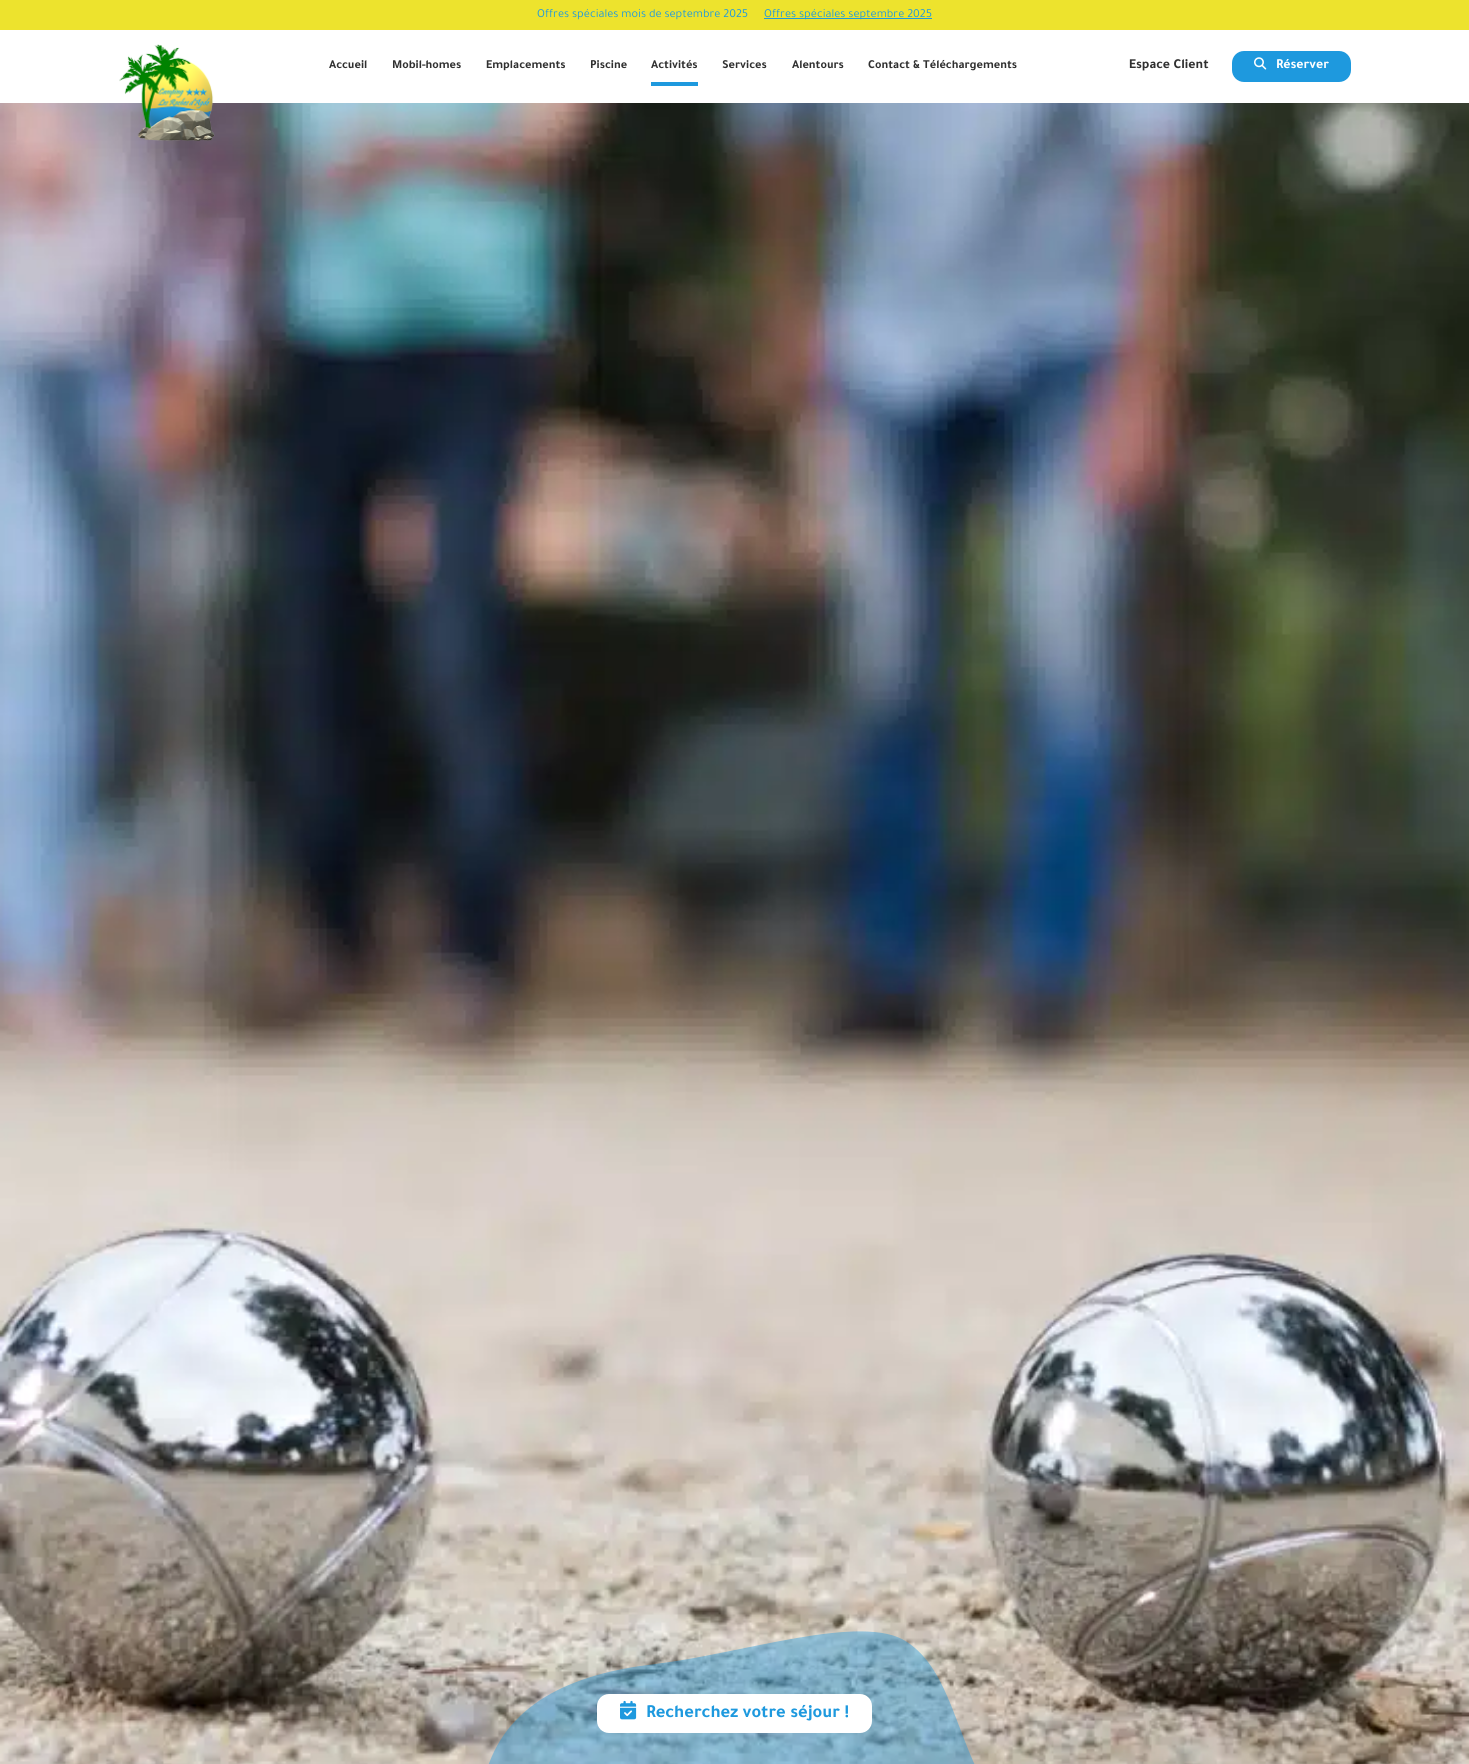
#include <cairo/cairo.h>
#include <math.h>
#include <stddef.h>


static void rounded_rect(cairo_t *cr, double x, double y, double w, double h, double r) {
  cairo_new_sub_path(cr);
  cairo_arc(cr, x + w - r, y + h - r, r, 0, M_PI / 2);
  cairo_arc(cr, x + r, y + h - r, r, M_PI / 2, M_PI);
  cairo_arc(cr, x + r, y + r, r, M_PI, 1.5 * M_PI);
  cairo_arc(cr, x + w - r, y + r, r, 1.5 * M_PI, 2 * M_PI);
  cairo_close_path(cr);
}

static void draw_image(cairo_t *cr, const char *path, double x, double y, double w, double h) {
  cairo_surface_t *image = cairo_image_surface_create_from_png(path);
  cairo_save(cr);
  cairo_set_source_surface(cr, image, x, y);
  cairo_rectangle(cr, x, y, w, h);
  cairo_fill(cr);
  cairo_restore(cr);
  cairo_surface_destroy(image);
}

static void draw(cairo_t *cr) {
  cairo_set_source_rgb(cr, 1, 1, 1);
  cairo_paint(cr);
  cairo_set_source_rgb(cr, 237 / 255.0, 227 / 255.0, 45 / 255.0);
  cairo_rectangle(cr, 0, 0, 1469, 30);
  cairo_fill(cr);
  cairo_set_source_rgb(cr, 30 / 255.0, 153 / 255.0, 222 / 255.0);
  cairo_rectangle(cr, 764, 18, 168, 1);
  cairo_fill(cr);
  draw_image(cr, "images/3.png", 0, 103, 1469, 1661);
  draw_image(cr, "images/1.png", 119, 44, 96, 97);
  cairo_rectangle(cr, 651, 82, 47, 4);
  cairo_fill(cr);
  rounded_rect(cr, 1232, 51, 119, 31, 12);
  cairo_fill(cr);
  draw_image(cr, "images/2.png", 1254, 57, 13, 13);
  cairo_set_source_rgba(cr, 30 / 255.0, 153 / 255.0, 222 / 255.0, 0.41);
  cairo_new_path(cr);
  cairo_move_to(cr, 655, 1664);
  cairo_curve_to(cr, 569, 1674, 504, 1705, 485, 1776);
  cairo_line_to(cr, 480, 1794);
  cairo_line_to(cr, 990, 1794);
  cairo_curve_to(cr, 956, 1739, 951, 1671, 907, 1642);
  cairo_curve_to(cr, 863, 1612, 741, 1654, 655, 1664);
  cairo_close_path(cr);
  cairo_fill(cr);
  cairo_set_source_rgb(cr, 1, 1, 1);
  rounded_rect(cr, 597, 1694, 275, 39, 12);
  cairo_fill(cr);
  draw_image(cr, "images/4.png", 620, 1700, 17, 20);
  cairo_select_font_face(cr, "Tajawal", CAIRO_FONT_SLANT_NORMAL, CAIRO_FONT_WEIGHT_NORMAL);
  cairo_set_font_size(cr, 12.25);
  cairo_set_source_rgb(cr, 30 / 255.0, 153 / 255.0, 222 / 255.0);
  cairo_move_to(cr, 537, 17);
  cairo_show_text(cr, "Offres spéciales mois de septembre 2025");
  cairo_move_to(cr, 764, 17);
  cairo_show_text(cr, "Offres spéciales septembre 2025");
  cairo_select_font_face(cr, "Tajawal", CAIRO_FONT_SLANT_NORMAL, CAIRO_FONT_WEIGHT_BOLD);
  cairo_set_source_rgb(cr, 48 / 255.0, 48 / 255.0, 48 / 255.0);
  cairo_move_to(cr, 329, 68);
  cairo_show_text(cr, "Accueil");
  cairo_move_to(cr, 392, 68);
  cairo_show_text(cr, "Mobil-homes");
  cairo_move_to(cr, 486, 68);
  cairo_show_text(cr, "Emplacements");
  cairo_move_to(cr, 590, 68);
  cairo_show_text(cr, "Piscine");
  cairo_move_to(cr, 651, 68);
  cairo_show_text(cr, "Activités");
  cairo_move_to(cr, 722, 68);
  cairo_show_text(cr, "Services");
  cairo_move_to(cr, 792, 68);
  cairo_show_text(cr, "Alentours");
  cairo_move_to(cr, 868, 68);
  cairo_show_text(cr, "Contact & Téléchargements");
  cairo_set_font_size(cr, 13.75);
  cairo_move_to(cr, 1129, 68);
  cairo_show_text(cr, "Espace Client");
  cairo_set_source_rgb(cr, 1, 1, 1);
  cairo_move_to(cr, 1276, 68);
  cairo_show_text(cr, "Réserver");
  cairo_set_font_size(cr, 18.4);
  cairo_set_source_rgb(cr, 30 / 255.0, 153 / 255.0, 222 / 255.0);
  cairo_move_to(cr, 646, 1717);
  cairo_show_text(cr, "Recherchez votre séjour !");
}

int main(void) {
  cairo_surface_t *surface = cairo_image_surface_create(CAIRO_FORMAT_RGB24, 1469, 1764);
  cairo_t *cr = cairo_create(surface);
  cairo_font_options_t *options = cairo_font_options_create();
  cairo_font_options_set_hint_metrics(options, CAIRO_HINT_METRICS_OFF);
  cairo_font_options_set_hint_style(options, CAIRO_HINT_STYLE_NONE);
  cairo_set_font_options(cr, options);
  cairo_set_miter_limit(cr, 4);
  draw(cr);
  cairo_surface_write_to_png(surface, "out.png");
  cairo_font_options_destroy(options);
  cairo_destroy(cr);
  cairo_surface_destroy(surface);
  return 0;
}
